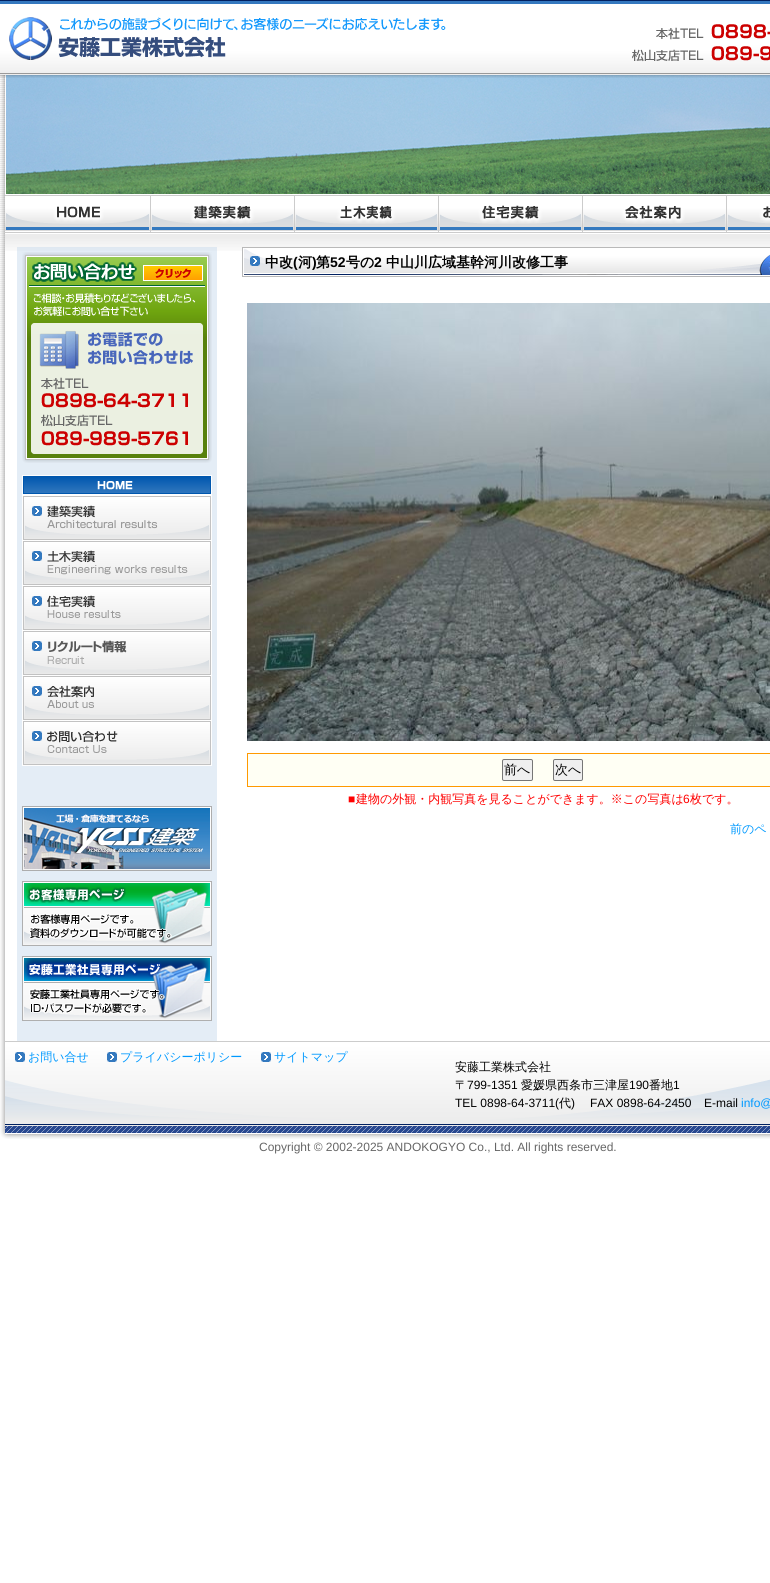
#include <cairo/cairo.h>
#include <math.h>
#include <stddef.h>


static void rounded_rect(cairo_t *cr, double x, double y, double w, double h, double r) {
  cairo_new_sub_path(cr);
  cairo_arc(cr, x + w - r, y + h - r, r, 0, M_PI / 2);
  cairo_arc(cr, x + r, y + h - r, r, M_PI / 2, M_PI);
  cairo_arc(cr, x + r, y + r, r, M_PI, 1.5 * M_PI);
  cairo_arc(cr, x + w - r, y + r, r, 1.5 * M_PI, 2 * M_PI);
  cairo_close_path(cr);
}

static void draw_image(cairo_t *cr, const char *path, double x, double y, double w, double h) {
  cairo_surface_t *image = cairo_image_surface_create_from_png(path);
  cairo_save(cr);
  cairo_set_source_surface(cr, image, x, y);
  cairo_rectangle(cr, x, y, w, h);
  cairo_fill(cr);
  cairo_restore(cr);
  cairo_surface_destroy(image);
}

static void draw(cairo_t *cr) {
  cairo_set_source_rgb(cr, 1, 1, 1);
  cairo_paint(cr);
  draw_image(cr, "images/1.png", 0, 0, 770, 490);
  draw_image(cr, "images/2.png", 632, 24, 138, 38);
  draw_image(cr, "images/3.png", 9, 17, 437, 43);
  draw_image(cr, "images/4.png", 0, 75, 770, 966);
  draw_image(cr, "images/5.png", 5, 75, 765, 120);
  draw_image(cr, "images/6.png", 5, 195, 765, 38);
  draw_image(cr, "images/7.png", 5, 233, 765, 18);
  draw_image(cr, "images/8.png", 22, 252, 190, 211);
  cairo_set_source_rgb(cr, 254 / 255.0, 254 / 255.0, 254 / 255.0);
  cairo_rectangle(cr, 22, 475, 190, 291);
  cairo_fill(cr);
  draw_image(cr, "images/9.png", 23, 476, 188, 18);
  draw_image(cr, "images/10.png", 23, 496, 188, 44);
  draw_image(cr, "images/11.png", 23, 541, 188, 44);
  draw_image(cr, "images/12.png", 23, 586, 188, 44);
  draw_image(cr, "images/13.png", 23, 631, 188, 44);
  draw_image(cr, "images/14.png", 23, 676, 188, 44);
  draw_image(cr, "images/15.png", 23, 721, 188, 44);
  draw_image(cr, "images/16.png", 22, 806, 190, 65);
  draw_image(cr, "images/17.png", 22, 881, 190, 65);
  draw_image(cr, "images/18.png", 22, 956, 190, 65);
  draw_image(cr, "images/19.png", 242, 247, 528, 30);
  draw_image(cr, "images/20.png", 247, 303, 523, 438);
  cairo_set_source_rgb(cr, 1, 1, 244 / 255.0);
  cairo_rectangle(cr, 247.5, 753.5, 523, 33);
  cairo_fill_preserve(cr);
  cairo_set_source_rgb(cr, 1, 153 / 255.0, 0);
  cairo_set_line_width(cr, 1);
  cairo_stroke(cr);
  cairo_set_source_rgb(cr, 239 / 255.0, 239 / 255.0, 239 / 255.0);
  rounded_rect(cr, 502.5, 759.5, 30, 21, 1.5);
  cairo_fill_preserve(cr);
  cairo_set_source_rgb(cr, 118 / 255.0, 118 / 255.0, 118 / 255.0);
  cairo_stroke(cr);
  cairo_set_source_rgb(cr, 239 / 255.0, 239 / 255.0, 239 / 255.0);
  rounded_rect(cr, 553.5, 759.5, 29, 21, 1.5);
  cairo_fill_preserve(cr);
  cairo_set_source_rgb(cr, 118 / 255.0, 118 / 255.0, 118 / 255.0);
  cairo_stroke(cr);
  draw_image(cr, "images/21.png", 0, 1041, 770, 98);
  draw_image(cr, "images/22.png", 15, 1052, 10, 10);
  draw_image(cr, "images/22.png", 107, 1052, 10, 10);
  draw_image(cr, "images/22.png", 261, 1052, 10, 10);
  cairo_select_font_face(cr, "WenQuanYi Zen Hei", CAIRO_FONT_SLANT_NORMAL, CAIRO_FONT_WEIGHT_BOLD);
  cairo_set_font_size(cr, 14);
  cairo_set_source_rgb(cr, 0, 0, 0);
  cairo_move_to(cr, 265, 267);
  cairo_show_text(cr, "中改");
  cairo_select_font_face(cr, "Liberation Sans", CAIRO_FONT_SLANT_NORMAL, CAIRO_FONT_WEIGHT_BOLD);
  cairo_move_to(cr, 293, 267);
  cairo_show_text(cr, "(");
  cairo_select_font_face(cr, "WenQuanYi Zen Hei", CAIRO_FONT_SLANT_NORMAL, CAIRO_FONT_WEIGHT_BOLD);
  cairo_move_to(cr, 298, 267);
  cairo_show_text(cr, "河");
  cairo_select_font_face(cr, "Liberation Sans", CAIRO_FONT_SLANT_NORMAL, CAIRO_FONT_WEIGHT_BOLD);
  cairo_move_to(cr, 312, 267);
  cairo_show_text(cr, ")");
  cairo_select_font_face(cr, "WenQuanYi Zen Hei", CAIRO_FONT_SLANT_NORMAL, CAIRO_FONT_WEIGHT_BOLD);
  cairo_move_to(cr, 316, 267);
  cairo_show_text(cr, "第");
  cairo_select_font_face(cr, "Liberation Sans", CAIRO_FONT_SLANT_NORMAL, CAIRO_FONT_WEIGHT_BOLD);
  cairo_move_to(cr, 330, 267);
  cairo_show_text(cr, "52");
  cairo_select_font_face(cr, "WenQuanYi Zen Hei", CAIRO_FONT_SLANT_NORMAL, CAIRO_FONT_WEIGHT_BOLD);
  cairo_move_to(cr, 346, 267);
  cairo_show_text(cr, "号の");
  cairo_select_font_face(cr, "Liberation Sans", CAIRO_FONT_SLANT_NORMAL, CAIRO_FONT_WEIGHT_BOLD);
  cairo_move_to(cr, 374, 267);
  cairo_show_text(cr, "2");
  cairo_select_font_face(cr, "WenQuanYi Zen Hei", CAIRO_FONT_SLANT_NORMAL, CAIRO_FONT_WEIGHT_BOLD);
  cairo_move_to(cr, 386, 267);
  cairo_show_text(cr, "中山川広域基幹河川改修工事");
  cairo_select_font_face(cr, "WenQuanYi Zen Hei Medium", CAIRO_FONT_SLANT_NORMAL, CAIRO_FONT_WEIGHT_NORMAL);
  cairo_set_font_size(cr, 13);
  cairo_move_to(cr, 504, 774);
  cairo_show_text(cr, "前へ");
  cairo_move_to(cr, 555, 774);
  cairo_show_text(cr, "次へ");
  cairo_select_font_face(cr, "Liberation Sans", CAIRO_FONT_SLANT_NORMAL, CAIRO_FONT_WEIGHT_NORMAL);
  cairo_set_font_size(cr, 12);
  cairo_set_source_rgb(cr, 1, 0, 0);
  cairo_move_to(cr, 348, 803);
  cairo_show_text(cr, "■");
  cairo_select_font_face(cr, "WenQuanYi Zen Hei Medium", CAIRO_FONT_SLANT_NORMAL, CAIRO_FONT_WEIGHT_NORMAL);
  cairo_move_to(cr, 356, 803);
  cairo_show_text(cr, "建物の外観・内観写真を見ることができます。※この写真は");
  cairo_select_font_face(cr, "Liberation Sans", CAIRO_FONT_SLANT_NORMAL, CAIRO_FONT_WEIGHT_NORMAL);
  cairo_move_to(cr, 683, 803);
  cairo_show_text(cr, "6");
  cairo_select_font_face(cr, "WenQuanYi Zen Hei Medium", CAIRO_FONT_SLANT_NORMAL, CAIRO_FONT_WEIGHT_NORMAL);
  cairo_move_to(cr, 690, 803);
  cairo_show_text(cr, "枚です。");
  cairo_set_source_rgb(cr, 0, 153 / 255.0, 1);
  cairo_move_to(cr, 730, 833);
  cairo_show_text(cr, "前のペ");
  cairo_move_to(cr, 28, 1061);
  cairo_show_text(cr, "お問い合せ");
  cairo_move_to(cr, 120, 1061);
  cairo_show_text(cr, "プライバシーポリシー");
  cairo_move_to(cr, 274, 1061);
  cairo_show_text(cr, "サイトマップ");
  cairo_set_source_rgb(cr, 0, 0, 0);
  cairo_move_to(cr, 455, 1071);
  cairo_show_text(cr, "安藤工業株式会社");
  cairo_move_to(cr, 455, 1089);
  cairo_show_text(cr, "〒");
  cairo_select_font_face(cr, "Liberation Sans", CAIRO_FONT_SLANT_NORMAL, CAIRO_FONT_WEIGHT_NORMAL);
  cairo_move_to(cr, 467, 1089);
  cairo_show_text(cr, "799-1351");
  cairo_select_font_face(cr, "WenQuanYi Zen Hei Medium", CAIRO_FONT_SLANT_NORMAL, CAIRO_FONT_WEIGHT_NORMAL);
  cairo_move_to(cr, 521, 1089);
  cairo_show_text(cr, "愛媛県西条市三津屋");
  cairo_select_font_face(cr, "Liberation Sans", CAIRO_FONT_SLANT_NORMAL, CAIRO_FONT_WEIGHT_NORMAL);
  cairo_move_to(cr, 629, 1089);
  cairo_show_text(cr, "190");
  cairo_select_font_face(cr, "WenQuanYi Zen Hei Medium", CAIRO_FONT_SLANT_NORMAL, CAIRO_FONT_WEIGHT_NORMAL);
  cairo_move_to(cr, 649, 1089);
  cairo_show_text(cr, "番地");
  cairo_select_font_face(cr, "Liberation Sans", CAIRO_FONT_SLANT_NORMAL, CAIRO_FONT_WEIGHT_NORMAL);
  cairo_move_to(cr, 673, 1089);
  cairo_show_text(cr, "1");
  cairo_move_to(cr, 455, 1107);
  cairo_show_text(cr, "TEL 0898-64-3711(");
  cairo_select_font_face(cr, "WenQuanYi Zen Hei Medium", CAIRO_FONT_SLANT_NORMAL, CAIRO_FONT_WEIGHT_NORMAL);
  cairo_move_to(cr, 559, 1107);
  cairo_show_text(cr, "代");
  cairo_select_font_face(cr, "Liberation Sans", CAIRO_FONT_SLANT_NORMAL, CAIRO_FONT_WEIGHT_NORMAL);
  cairo_move_to(cr, 571, 1107);
  cairo_show_text(cr, ")");
  cairo_move_to(cr, 590, 1107);
  cairo_show_text(cr, "FAX 0898-64-2450");
  cairo_move_to(cr, 704, 1107);
  cairo_show_text(cr, "E-mail");
  cairo_set_source_rgb(cr, 0, 153 / 255.0, 1);
  cairo_move_to(cr, 741, 1107);
  cairo_show_text(cr, "info@");
  cairo_set_source_rgb(cr, 102 / 255.0, 102 / 255.0, 102 / 255.0);
  cairo_move_to(cr, 259, 1151);
  cairo_show_text(cr, "Copyright © 2002-2025 ANDOKOGYO Co., Ltd. All rights reserved.");
}

int main(void) {
  cairo_surface_t *surface = cairo_image_surface_create(CAIRO_FORMAT_RGB24, 770, 1583);
  cairo_t *cr = cairo_create(surface);
  cairo_font_options_t *options = cairo_font_options_create();
  cairo_font_options_set_hint_metrics(options, CAIRO_HINT_METRICS_OFF);
  cairo_font_options_set_hint_style(options, CAIRO_HINT_STYLE_NONE);
  cairo_set_font_options(cr, options);
  cairo_set_miter_limit(cr, 4);
  draw(cr);
  cairo_surface_write_to_png(surface, "out.png");
  cairo_font_options_destroy(options);
  cairo_destroy(cr);
  cairo_surface_destroy(surface);
  return 0;
}
